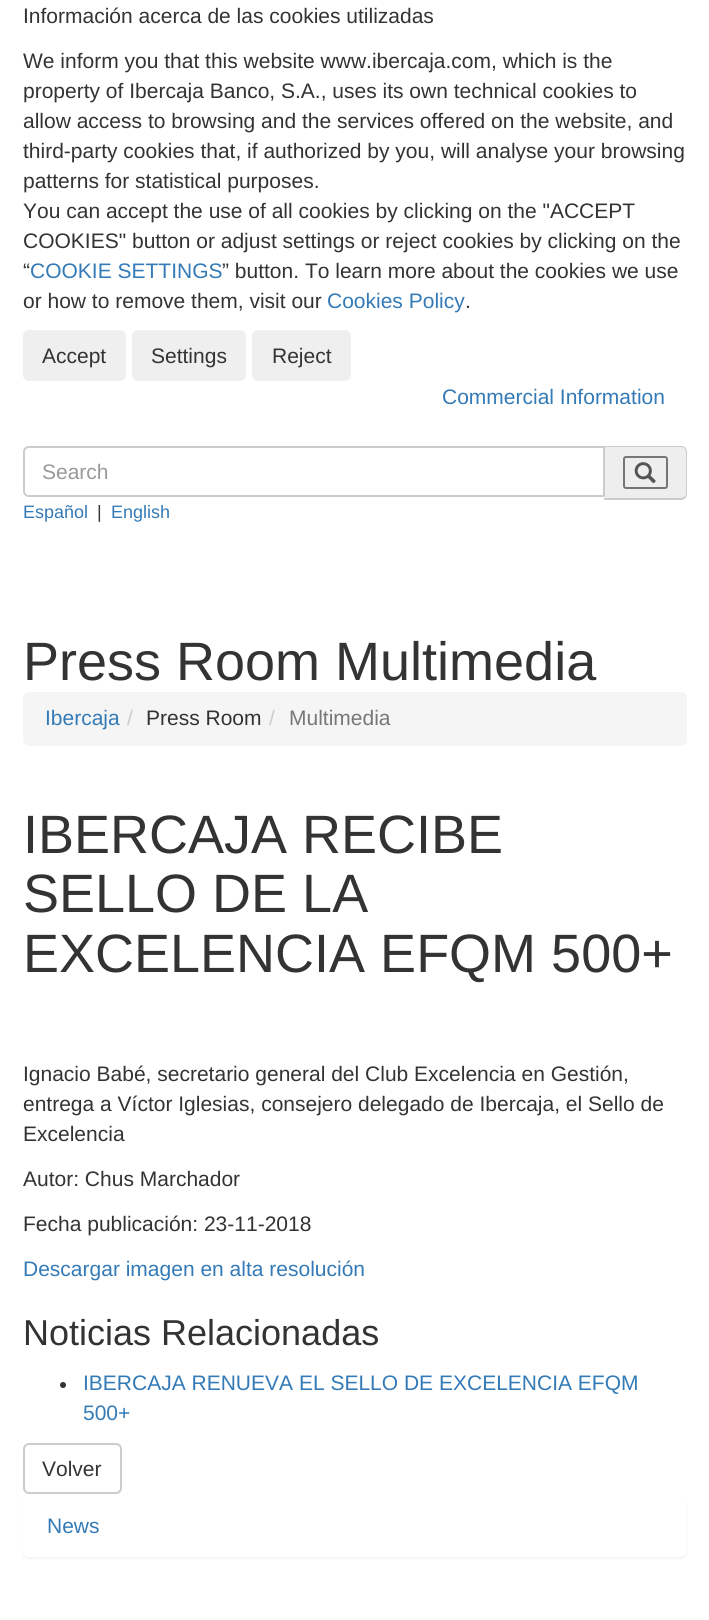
#include <cairo/cairo.h>
#include <math.h>
#include <stddef.h>


static void rounded_rect(cairo_t *cr, double x, double y, double w, double h, double r) {
  cairo_new_sub_path(cr);
  cairo_arc(cr, x + w - r, y + h - r, r, 0, M_PI / 2);
  cairo_arc(cr, x + r, y + h - r, r, M_PI / 2, M_PI);
  cairo_arc(cr, x + r, y + r, r, M_PI, 1.5 * M_PI);
  cairo_arc(cr, x + w - r, y + r, r, 1.5 * M_PI, 2 * M_PI);
  cairo_close_path(cr);
}

static void draw_shadow(cairo_t *cr, double x, double y, double w, double h, double r, double blur, double alpha) {
  cairo_push_group_with_content(cr, CAIRO_CONTENT_ALPHA);
  cairo_set_operator(cr, CAIRO_OPERATOR_SOURCE);
  for (int i = 15; i >= -15 && fmin(w, h) + blur * i / 3 > 0; i -= 2) {
    double e = blur * i / 6;
    cairo_set_source_rgba(cr, 0, 0, 0, alpha * erfc((i - 1) / 8.5) / 2);
    rounded_rect(cr, x - e, y - e, w + 2 * e, h + 2 * e, fmax(0, fmin(r + e + blur * .6, fmin(w, h) / 2 + e)));
    cairo_fill(cr);
  }
  cairo_pattern_t *soft = cairo_pop_group(cr);
  cairo_mask(cr, soft);
  cairo_pattern_destroy(soft);
}

static void draw_image(cairo_t *cr, const char *path, double x, double y, double w, double h) {
  cairo_surface_t *image = cairo_image_surface_create_from_png(path);
  cairo_save(cr);
  cairo_set_source_surface(cr, image, x, y);
  cairo_rectangle(cr, x, y, w, h);
  cairo_fill(cr);
  cairo_restore(cr);
  cairo_surface_destroy(image);
}

static void draw(cairo_t *cr) {
  cairo_set_source_rgb(cr, 1, 1, 1);
  cairo_paint(cr);
  cairo_set_source_rgb(cr, 239 / 255.0, 239 / 255.0, 239 / 255.0);
  rounded_rect(cr, 23, 330, 103, 51, 6);
  cairo_fill(cr);
  rounded_rect(cr, 132, 330, 114, 51, 6);
  cairo_fill(cr);
  rounded_rect(cr, 252, 330, 99, 51, 6);
  cairo_fill(cr);
  cairo_set_source_rgb(cr, 238 / 255.0, 238 / 255.0, 238 / 255.0);
  cairo_new_path(cr);
  cairo_move_to(cr, 605, 446);
  cairo_line_to(cr, 681, 446);
  cairo_curve_to(cr, 684.5, 446, 687, 448.5, 687, 452);
  cairo_line_to(cr, 687, 494);
  cairo_curve_to(cr, 687, 497.5, 684.5, 500, 681, 500);
  cairo_line_to(cr, 605, 500);
  cairo_close_path(cr);
  cairo_fill(cr);
  cairo_set_source_rgb(cr, 204 / 255.0, 204 / 255.0, 204 / 255.0);
  cairo_set_fill_rule(cr, CAIRO_FILL_RULE_EVEN_ODD);
  cairo_new_path(cr);
  cairo_move_to(cr, 604, 446);
  cairo_line_to(cr, 681, 446);
  cairo_curve_to(cr, 684, 446, 687, 448, 687, 452);
  cairo_line_to(cr, 687, 494);
  cairo_curve_to(cr, 687, 497, 684, 500, 681, 500);
  cairo_line_to(cr, 604, 500);
  cairo_close_path(cr);
  cairo_move_to(cr, 604, 447);
  cairo_line_to(cr, 681, 447);
  cairo_curve_to(cr, 683, 447, 686, 449, 686, 452);
  cairo_line_to(cr, 686, 494);
  cairo_curve_to(cr, 686, 496, 683, 498, 681, 498);
  cairo_line_to(cr, 604, 498);
  cairo_close_path(cr);
  cairo_fill(cr);
  cairo_set_source_rgb(cr, 1, 1, 1);
  cairo_new_path(cr);
  cairo_move_to(cr, 29, 447);
  cairo_line_to(cr, 604, 447);
  cairo_line_to(cr, 604, 496);
  cairo_line_to(cr, 29, 496);
  cairo_curve_to(cr, 26, 496, 24, 494, 24, 491);
  cairo_line_to(cr, 24, 452);
  cairo_curve_to(cr, 24, 449, 26, 447, 29, 447);
  cairo_close_path(cr);
  cairo_fill_preserve(cr);
  cairo_set_source_rgb(cr, 204 / 255.0, 204 / 255.0, 204 / 255.0);
  cairo_stroke(cr);
  rounded_rect(cr, 624, 457, 43, 31, 2);
  cairo_set_source_rgb(cr, 118 / 255.0, 118 / 255.0, 118 / 255.0);
  cairo_stroke(cr);
  draw_image(cr, "images/1.png", 634, 462, 22, 22);
  cairo_set_source_rgb(cr, 245 / 255.0, 245 / 255.0, 245 / 255.0);
  rounded_rect(cr, 23, 692, 664, 54, 6);
  cairo_fill(cr);
  cairo_set_source_rgb(cr, 51 / 255.0, 51 / 255.0, 51 / 255.0);
  cairo_arc(cr, 63, 1385, 3, 0, 2 * M_PI);
  cairo_fill(cr);
  rounded_rect(cr, 24, 1444, 97, 49, 5);
  cairo_set_source_rgb(cr, 204 / 255.0, 204 / 255.0, 204 / 255.0);
  cairo_stroke(cr);
  cairo_set_source_rgb(cr, 0, 0, 0);
  draw_shadow(cr, 23, 1496, 664, 63, 6, 1, 0.05);
  cairo_set_source_rgb(cr, 1, 1, 1);
  rounded_rect(cr, 23, 1494, 664, 63, 6);
  cairo_fill(cr);
  cairo_select_font_face(cr, "Liberation Sans", CAIRO_FONT_SLANT_NORMAL, CAIRO_FONT_WEIGHT_NORMAL);
  cairo_set_font_size(cr, 21);
  cairo_set_source_rgb(cr, 51 / 255.0, 51 / 255.0, 51 / 255.0);
  cairo_move_to(cr, 23, 23);
  cairo_show_text(cr, "Información acerca de las cookies utilizadas");
  cairo_move_to(cr, 23, 68);
  cairo_show_text(cr, "We inform you that this website www.ibercaja.com, which is the");
  cairo_move_to(cr, 23, 98);
  cairo_show_text(cr, "property of Ibercaja Banco, S.A., uses its own technical cookies to");
  cairo_move_to(cr, 23, 128);
  cairo_show_text(cr, "allow access to browsing and the services offered on the website, and");
  cairo_move_to(cr, 23, 158);
  cairo_show_text(cr, "third-party cookies that, if authorized by you, will analyse your browsing");
  cairo_move_to(cr, 23, 188);
  cairo_show_text(cr, "patterns for statistical purposes.");
  cairo_move_to(cr, 23, 218);
  cairo_show_text(cr, "You can accept the use of all cookies by clicking on the \"ACCEPT");
  cairo_move_to(cr, 23, 248);
  cairo_show_text(cr, "COOKIES\" button or adjust settings or reject cookies by clicking on the");
  cairo_move_to(cr, 23, 278);
  cairo_show_text(cr, "“");
  cairo_set_source_rgb(cr, 51 / 255.0, 122 / 255.0, 183 / 255.0);
  cairo_move_to(cr, 30, 278);
  cairo_show_text(cr, "COOKIE SETTINGS");
  cairo_set_source_rgb(cr, 51 / 255.0, 51 / 255.0, 51 / 255.0);
  cairo_move_to(cr, 222, 278);
  cairo_show_text(cr, "” button. To learn more about the cookies we use");
  cairo_move_to(cr, 23, 308);
  cairo_show_text(cr, "or how to remove them, visit our");
  cairo_set_source_rgb(cr, 51 / 255.0, 122 / 255.0, 183 / 255.0);
  cairo_move_to(cr, 327, 308);
  cairo_show_text(cr, "Cookies Policy");
  cairo_set_source_rgb(cr, 51 / 255.0, 51 / 255.0, 51 / 255.0);
  cairo_move_to(cr, 465, 308);
  cairo_show_text(cr, ".");
  cairo_move_to(cr, 42, 363);
  cairo_show_text(cr, "Accept");
  cairo_move_to(cr, 151, 363);
  cairo_show_text(cr, "Settings");
  cairo_move_to(cr, 272, 363);
  cairo_show_text(cr, "Reject");
  cairo_set_source_rgb(cr, 51 / 255.0, 122 / 255.0, 183 / 255.0);
  cairo_move_to(cr, 442, 404);
  cairo_show_text(cr, "Commercial Information");
  cairo_set_source_rgb(cr, 153 / 255.0, 153 / 255.0, 153 / 255.0);
  cairo_move_to(cr, 42, 479);
  cairo_show_text(cr, "Search");
  cairo_set_font_size(cr, 18);
  cairo_set_source_rgb(cr, 51 / 255.0, 122 / 255.0, 183 / 255.0);
  cairo_move_to(cr, 23, 518);
  cairo_show_text(cr, "Español");
  cairo_set_source_rgb(cr, 51 / 255.0, 51 / 255.0, 51 / 255.0);
  cairo_move_to(cr, 97, 518);
  cairo_show_text(cr, "|");
  cairo_set_source_rgb(cr, 51 / 255.0, 122 / 255.0, 183 / 255.0);
  cairo_move_to(cr, 111, 518);
  cairo_show_text(cr, "English");
  cairo_set_font_size(cr, 54);
  cairo_set_source_rgb(cr, 51 / 255.0, 51 / 255.0, 51 / 255.0);
  cairo_move_to(cr, 23, 680);
  cairo_show_text(cr, "Press Room Multimedia");
  cairo_set_font_size(cr, 21);
  cairo_set_source_rgb(cr, 51 / 255.0, 122 / 255.0, 183 / 255.0);
  cairo_move_to(cr, 45, 725);
  cairo_show_text(cr, "Ibercaja");
  cairo_set_source_rgb(cr, 204 / 255.0, 204 / 255.0, 204 / 255.0);
  cairo_move_to(cr, 127, 725);
  cairo_show_text(cr, "/");
  cairo_set_source_rgb(cr, 51 / 255.0, 51 / 255.0, 51 / 255.0);
  cairo_move_to(cr, 146, 725);
  cairo_show_text(cr, "Press Room");
  cairo_set_source_rgb(cr, 204 / 255.0, 204 / 255.0, 204 / 255.0);
  cairo_move_to(cr, 269, 725);
  cairo_show_text(cr, "/");
  cairo_set_source_rgb(cr, 119 / 255.0, 119 / 255.0, 119 / 255.0);
  cairo_move_to(cr, 289, 725);
  cairo_show_text(cr, "Multimedia");
  cairo_set_font_size(cr, 54);
  cairo_set_source_rgb(cr, 51 / 255.0, 51 / 255.0, 51 / 255.0);
  cairo_move_to(cr, 23, 853);
  cairo_show_text(cr, "IBERCAJA RECIBE");
  cairo_move_to(cr, 23, 912);
  cairo_show_text(cr, "SELLO DE LA");
  cairo_move_to(cr, 23, 972);
  cairo_show_text(cr, "EXCELENCIA EFQM 500+");
  cairo_set_font_size(cr, 21);
  cairo_move_to(cr, 23, 1081);
  cairo_show_text(cr, "Ignacio Babé, secretario general del Club Excelencia en Gestión,");
  cairo_move_to(cr, 23, 1111);
  cairo_show_text(cr, "entrega a Víctor Iglesias, consejero delegado de Ibercaja, el Sello de");
  cairo_move_to(cr, 23, 1141);
  cairo_show_text(cr, "Excelencia");
  cairo_move_to(cr, 23, 1186);
  cairo_show_text(cr, "Autor: Chus Marchador");
  cairo_move_to(cr, 23, 1231);
  cairo_show_text(cr, "Fecha publicación: 23-11-2018");
  cairo_set_source_rgb(cr, 51 / 255.0, 122 / 255.0, 183 / 255.0);
  cairo_move_to(cr, 23, 1276);
  cairo_show_text(cr, "Descargar imagen en alta resolución");
  cairo_set_font_size(cr, 36);
  cairo_set_source_rgb(cr, 51 / 255.0, 51 / 255.0, 51 / 255.0);
  cairo_move_to(cr, 23, 1345);
  cairo_show_text(cr, "Noticias Relacionadas");
  cairo_set_font_size(cr, 21);
  cairo_set_source_rgb(cr, 51 / 255.0, 122 / 255.0, 183 / 255.0);
  cairo_move_to(cr, 83, 1390);
  cairo_show_text(cr, "IBERCAJA RENUEVA EL SELLO DE EXCELENCIA EFQM");
  cairo_move_to(cr, 83, 1420);
  cairo_show_text(cr, "500+");
  cairo_set_source_rgb(cr, 51 / 255.0, 51 / 255.0, 51 / 255.0);
  cairo_move_to(cr, 42, 1476);
  cairo_show_text(cr, "Volver");
  cairo_set_source_rgb(cr, 51 / 255.0, 122 / 255.0, 183 / 255.0);
  cairo_move_to(cr, 47, 1533);
  cairo_show_text(cr, "News");
}

int main(void) {
  cairo_surface_t *surface = cairo_image_surface_create(CAIRO_FORMAT_RGB24, 709, 1620);
  cairo_t *cr = cairo_create(surface);
  cairo_font_options_t *options = cairo_font_options_create();
  cairo_font_options_set_hint_metrics(options, CAIRO_HINT_METRICS_OFF);
  cairo_font_options_set_hint_style(options, CAIRO_HINT_STYLE_NONE);
  cairo_set_font_options(cr, options);
  cairo_set_miter_limit(cr, 4);
  draw(cr);
  cairo_surface_write_to_png(surface, "out.png");
  cairo_font_options_destroy(options);
  cairo_destroy(cr);
  cairo_surface_destroy(surface);
  return 0;
}
